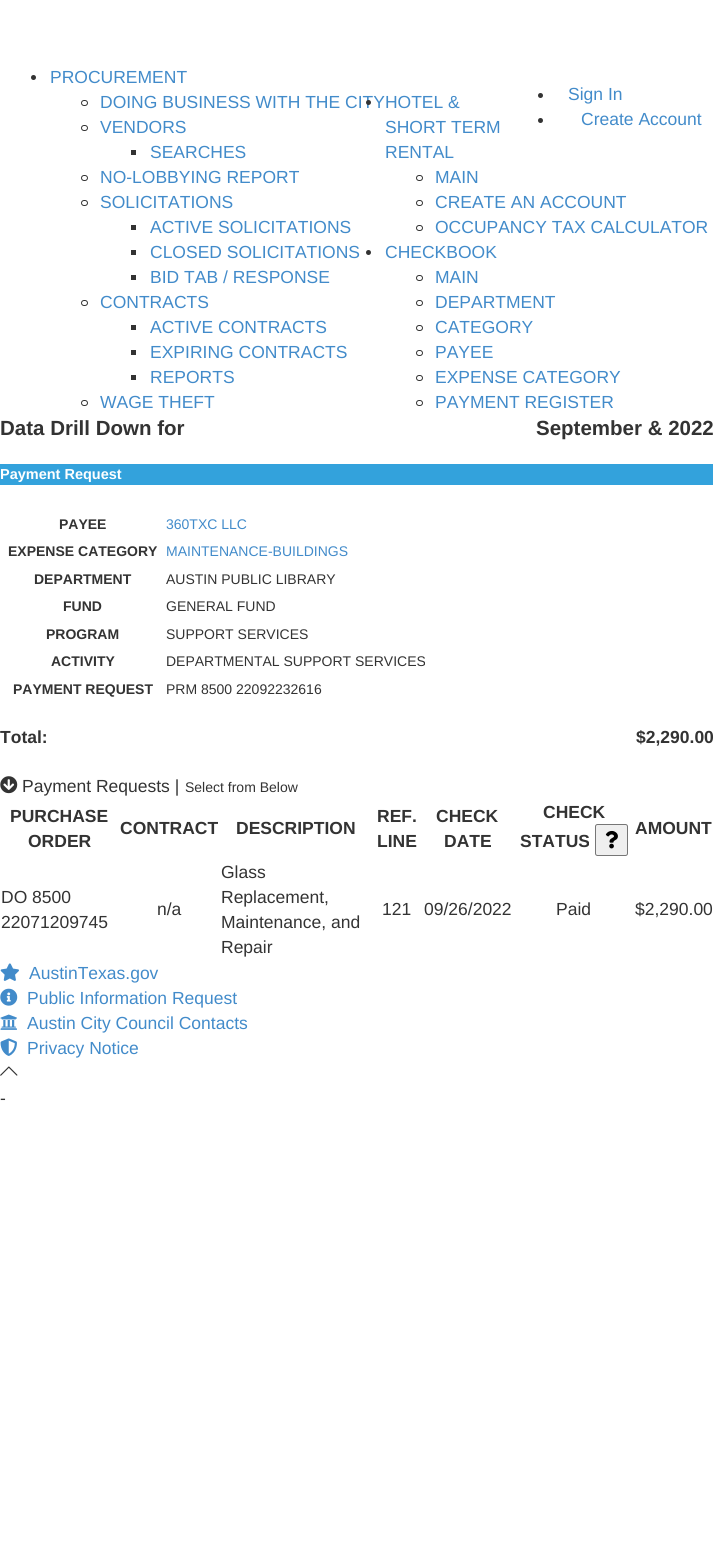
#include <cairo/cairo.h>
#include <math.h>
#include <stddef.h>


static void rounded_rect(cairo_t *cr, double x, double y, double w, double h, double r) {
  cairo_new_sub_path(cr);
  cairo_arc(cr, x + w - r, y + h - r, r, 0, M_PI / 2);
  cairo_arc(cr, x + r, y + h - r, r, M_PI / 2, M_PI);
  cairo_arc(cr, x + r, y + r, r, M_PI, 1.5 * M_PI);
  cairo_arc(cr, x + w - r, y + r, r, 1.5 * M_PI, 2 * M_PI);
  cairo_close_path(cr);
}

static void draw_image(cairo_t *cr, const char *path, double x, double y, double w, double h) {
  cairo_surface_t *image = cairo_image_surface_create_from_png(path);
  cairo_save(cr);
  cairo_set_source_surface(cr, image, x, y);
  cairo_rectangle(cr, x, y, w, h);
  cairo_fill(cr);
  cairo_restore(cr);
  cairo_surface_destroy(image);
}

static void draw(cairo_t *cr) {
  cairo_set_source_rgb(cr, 1, 1, 1);
  cairo_paint(cr);
  cairo_set_source_rgb(cr, 51 / 255.0, 51 / 255.0, 51 / 255.0);
  cairo_arc(cr, 33.5, 77.5, 2.5, 0, 2 * M_PI);
  cairo_fill(cr);
  rounded_rect(cr, 81.5, 100.5, 6, 5, 2.5);
  cairo_set_line_width(cr, 1);
  cairo_stroke(cr);
  rounded_rect(cr, 81.5, 125.5, 6, 5, 2.5);
  cairo_stroke(cr);
  cairo_rectangle(cr, 131, 150, 5, 5);
  cairo_fill(cr);
  rounded_rect(cr, 81.5, 175.5, 6, 5, 2.5);
  cairo_stroke(cr);
  rounded_rect(cr, 81.5, 200.5, 6, 5, 2.5);
  cairo_stroke(cr);
  cairo_rectangle(cr, 131, 225, 5, 5);
  cairo_fill(cr);
  cairo_rectangle(cr, 131, 250, 5, 5);
  cairo_fill(cr);
  cairo_rectangle(cr, 131, 275, 5, 5);
  cairo_fill(cr);
  rounded_rect(cr, 81.5, 300.5, 6, 5, 2.5);
  cairo_stroke(cr);
  cairo_rectangle(cr, 131, 325, 5, 5);
  cairo_fill(cr);
  cairo_rectangle(cr, 131, 350, 5, 5);
  cairo_fill(cr);
  cairo_rectangle(cr, 131, 375, 5, 5);
  cairo_fill(cr);
  rounded_rect(cr, 81.5, 400.5, 6, 5, 2.5);
  cairo_stroke(cr);
  rounded_rect(cr, 416.5, 175.5, 6, 5, 2.5);
  cairo_stroke(cr);
  rounded_rect(cr, 416.5, 200.5, 6, 5, 2.5);
  cairo_stroke(cr);
  rounded_rect(cr, 416.5, 225.5, 6, 5, 2.5);
  cairo_stroke(cr);
  cairo_arc(cr, 368.5, 252.5, 2.5, 0, 2 * M_PI);
  cairo_fill(cr);
  rounded_rect(cr, 416.5, 275.5, 6, 5, 2.5);
  cairo_stroke(cr);
  rounded_rect(cr, 416.5, 300.5, 6, 5, 2.5);
  cairo_stroke(cr);
  rounded_rect(cr, 416.5, 325.5, 6, 5, 2.5);
  cairo_stroke(cr);
  rounded_rect(cr, 416.5, 350.5, 6, 5, 2.5);
  cairo_stroke(cr);
  rounded_rect(cr, 416.5, 375.5, 6, 5, 2.5);
  cairo_stroke(cr);
  rounded_rect(cr, 416.5, 400.5, 6, 5, 2.5);
  cairo_stroke(cr);
  cairo_arc(cr, 540.5, 95.5, 2.5, 0, 2 * M_PI);
  cairo_fill(cr);
  cairo_arc(cr, 540.5, 120.5, 2.5, 0, 2 * M_PI);
  cairo_fill(cr);
  cairo_set_source_rgb(cr, 51 / 255.0, 162 / 255.0, 220 / 255.0);
  cairo_rectangle(cr, 0, 464, 713, 21);
  cairo_fill(cr);
  draw_image(cr, "images/1.png", 0, 776, 18, 18);
  cairo_set_source_rgb(cr, 239 / 255.0, 239 / 255.0, 239 / 255.0);
  rounded_rect(cr, 595.5, 824.5, 32, 31, 2);
  cairo_fill_preserve(cr);
  cairo_set_source_rgb(cr, 118 / 255.0, 118 / 255.0, 118 / 255.0);
  cairo_stroke(cr);
  draw_image(cr, "images/2.png", 605, 830, 13, 19);
  draw_image(cr, "images/3.png", 0, 963, 19, 18);
  draw_image(cr, "images/4.png", 0, 988, 18, 18);
  draw_image(cr, "images/5.png", 0, 1014, 17, 16);
  draw_image(cr, "images/6.png", 0, 1038, 17, 18);
  draw_image(cr, "images/7.png", 0, 1066, 18, 10);
  cairo_select_font_face(cr, "Liberation Sans", CAIRO_FONT_SLANT_NORMAL, CAIRO_FONT_WEIGHT_NORMAL);
  cairo_set_font_size(cr, 17.5);
  cairo_set_source_rgb(cr, 66 / 255.0, 139 / 255.0, 202 / 255.0);
  cairo_move_to(cr, 50, 83);
  cairo_show_text(cr, "PROCUREMENT");
  cairo_move_to(cr, 100, 108);
  cairo_show_text(cr, "DOING BUSINESS WITH THE CITYHOTEL &");
  cairo_move_to(cr, 100, 133);
  cairo_show_text(cr, "VENDORS");
  cairo_move_to(cr, 150, 158);
  cairo_show_text(cr, "SEARCHES");
  cairo_move_to(cr, 100, 183);
  cairo_show_text(cr, "NO-LOBBYING REPORT");
  cairo_move_to(cr, 100, 208);
  cairo_show_text(cr, "SOLICITATIONS");
  cairo_move_to(cr, 150, 233);
  cairo_show_text(cr, "ACTIVE SOLICITATIONS");
  cairo_move_to(cr, 150, 258);
  cairo_show_text(cr, "CLOSED SOLICITATIONS");
  cairo_move_to(cr, 150, 283);
  cairo_show_text(cr, "BID TAB / RESPONSE");
  cairo_move_to(cr, 100, 308);
  cairo_show_text(cr, "CONTRACTS");
  cairo_move_to(cr, 150, 333);
  cairo_show_text(cr, "ACTIVE CONTRACTS");
  cairo_move_to(cr, 150, 358);
  cairo_show_text(cr, "EXPIRING CONTRACTS");
  cairo_move_to(cr, 150, 383);
  cairo_show_text(cr, "REPORTS");
  cairo_move_to(cr, 100, 408);
  cairo_show_text(cr, "WAGE THEFT");
  cairo_set_source_rgb(cr, 51 / 255.0, 51 / 255.0, 51 / 255.0);
  cairo_new_path(cr);
  cairo_arc(cr, 368.5, 102.5, 2.5, 0, 2 * M_PI);
  cairo_fill(cr);
  cairo_set_source_rgb(cr, 66 / 255.0, 139 / 255.0, 202 / 255.0);
  cairo_move_to(cr, 385, 133);
  cairo_show_text(cr, "SHORT TERM");
  cairo_move_to(cr, 385, 158);
  cairo_show_text(cr, "RENTAL");
  cairo_move_to(cr, 435, 183);
  cairo_show_text(cr, "MAIN");
  cairo_move_to(cr, 435, 208);
  cairo_show_text(cr, "CREATE AN ACCOUNT");
  cairo_move_to(cr, 435, 233);
  cairo_show_text(cr, "OCCUPANCY TAX CALCULATOR");
  cairo_move_to(cr, 385, 258);
  cairo_show_text(cr, "CHECKBOOK");
  cairo_move_to(cr, 435, 283);
  cairo_show_text(cr, "MAIN");
  cairo_move_to(cr, 435, 308);
  cairo_show_text(cr, "DEPARTMENT");
  cairo_move_to(cr, 435, 333);
  cairo_show_text(cr, "CATEGORY");
  cairo_move_to(cr, 435, 358);
  cairo_show_text(cr, "PAYEE");
  cairo_move_to(cr, 435, 383);
  cairo_show_text(cr, "EXPENSE CATEGORY");
  cairo_move_to(cr, 435, 408);
  cairo_show_text(cr, "PAYMENT REGISTER");
  cairo_move_to(cr, 568, 100);
  cairo_show_text(cr, "Sign In");
  cairo_move_to(cr, 581, 125);
  cairo_show_text(cr, "Create Account");
  cairo_select_font_face(cr, "Liberation Sans", CAIRO_FONT_SLANT_NORMAL, CAIRO_FONT_WEIGHT_BOLD);
  cairo_set_font_size(cr, 20.5);
  cairo_set_source_rgb(cr, 51 / 255.0, 51 / 255.0, 51 / 255.0);
  cairo_move_to(cr, 0, 435);
  cairo_show_text(cr, "Data Drill Down for");
  cairo_move_to(cr, 536, 435);
  cairo_show_text(cr, "September & 2022");
  cairo_set_font_size(cr, 14.5);
  cairo_set_source_rgb(cr, 1, 1, 1);
  cairo_move_to(cr, 0, 479);
  cairo_show_text(cr, "Payment Request");
  cairo_set_font_size(cr, 14);
  cairo_set_source_rgb(cr, 51 / 255.0, 51 / 255.0, 51 / 255.0);
  cairo_move_to(cr, 59, 529);
  cairo_show_text(cr, "PAYEE");
  cairo_select_font_face(cr, "Liberation Sans", CAIRO_FONT_SLANT_NORMAL, CAIRO_FONT_WEIGHT_NORMAL);
  cairo_set_source_rgb(cr, 66 / 255.0, 139 / 255.0, 202 / 255.0);
  cairo_move_to(cr, 166, 529);
  cairo_show_text(cr, "360TXC LLC");
  cairo_select_font_face(cr, "Liberation Sans", CAIRO_FONT_SLANT_NORMAL, CAIRO_FONT_WEIGHT_BOLD);
  cairo_set_source_rgb(cr, 51 / 255.0, 51 / 255.0, 51 / 255.0);
  cairo_move_to(cr, 8, 556);
  cairo_show_text(cr, "EXPENSE CATEGORY");
  cairo_select_font_face(cr, "Liberation Sans", CAIRO_FONT_SLANT_NORMAL, CAIRO_FONT_WEIGHT_NORMAL);
  cairo_set_source_rgb(cr, 66 / 255.0, 139 / 255.0, 202 / 255.0);
  cairo_move_to(cr, 166, 556);
  cairo_show_text(cr, "MAINTENANCE-BUILDINGS");
  cairo_select_font_face(cr, "Liberation Sans", CAIRO_FONT_SLANT_NORMAL, CAIRO_FONT_WEIGHT_BOLD);
  cairo_set_source_rgb(cr, 51 / 255.0, 51 / 255.0, 51 / 255.0);
  cairo_move_to(cr, 34, 584);
  cairo_show_text(cr, "DEPARTMENT");
  cairo_select_font_face(cr, "Liberation Sans", CAIRO_FONT_SLANT_NORMAL, CAIRO_FONT_WEIGHT_NORMAL);
  cairo_move_to(cr, 166, 584);
  cairo_show_text(cr, "AUSTIN PUBLIC LIBRARY");
  cairo_select_font_face(cr, "Liberation Sans", CAIRO_FONT_SLANT_NORMAL, CAIRO_FONT_WEIGHT_BOLD);
  cairo_move_to(cr, 63, 611);
  cairo_show_text(cr, "FUND");
  cairo_select_font_face(cr, "Liberation Sans", CAIRO_FONT_SLANT_NORMAL, CAIRO_FONT_WEIGHT_NORMAL);
  cairo_move_to(cr, 166, 611);
  cairo_show_text(cr, "GENERAL FUND");
  cairo_select_font_face(cr, "Liberation Sans", CAIRO_FONT_SLANT_NORMAL, CAIRO_FONT_WEIGHT_BOLD);
  cairo_move_to(cr, 46, 639);
  cairo_show_text(cr, "PROGRAM");
  cairo_select_font_face(cr, "Liberation Sans", CAIRO_FONT_SLANT_NORMAL, CAIRO_FONT_WEIGHT_NORMAL);
  cairo_move_to(cr, 166, 639);
  cairo_show_text(cr, "SUPPORT SERVICES");
  cairo_select_font_face(cr, "Liberation Sans", CAIRO_FONT_SLANT_NORMAL, CAIRO_FONT_WEIGHT_BOLD);
  cairo_move_to(cr, 51, 666);
  cairo_show_text(cr, "ACTIVITY");
  cairo_select_font_face(cr, "Liberation Sans", CAIRO_FONT_SLANT_NORMAL, CAIRO_FONT_WEIGHT_NORMAL);
  cairo_move_to(cr, 166, 666);
  cairo_show_text(cr, "DEPARTMENTAL SUPPORT SERVICES");
  cairo_select_font_face(cr, "Liberation Sans", CAIRO_FONT_SLANT_NORMAL, CAIRO_FONT_WEIGHT_BOLD);
  cairo_move_to(cr, 13, 694);
  cairo_show_text(cr, "PAYMENT REQUEST");
  cairo_select_font_face(cr, "Liberation Sans", CAIRO_FONT_SLANT_NORMAL, CAIRO_FONT_WEIGHT_NORMAL);
  cairo_move_to(cr, 166, 694);
  cairo_show_text(cr, "PRM 8500 22092232616");
  cairo_select_font_face(cr, "Liberation Sans", CAIRO_FONT_SLANT_NORMAL, CAIRO_FONT_WEIGHT_BOLD);
  cairo_set_font_size(cr, 17.5);
  cairo_move_to(cr, 0, 743);
  cairo_show_text(cr, "Total:");
  cairo_move_to(cr, 636, 743);
  cairo_show_text(cr, "$2,290.00");
  cairo_select_font_face(cr, "Liberation Sans", CAIRO_FONT_SLANT_NORMAL, CAIRO_FONT_WEIGHT_NORMAL);
  cairo_move_to(cr, 22, 792);
  cairo_show_text(cr, "Payment Requests |");
  cairo_set_font_size(cr, 14);
  cairo_move_to(cr, 185, 792);
  cairo_show_text(cr, "Select from Below");
  cairo_select_font_face(cr, "Liberation Sans", CAIRO_FONT_SLANT_NORMAL, CAIRO_FONT_WEIGHT_BOLD);
  cairo_set_font_size(cr, 17.5);
  cairo_move_to(cr, 10, 822);
  cairo_show_text(cr, "PURCHASE");
  cairo_move_to(cr, 28, 847);
  cairo_show_text(cr, "ORDER");
  cairo_move_to(cr, 120, 834);
  cairo_show_text(cr, "CONTRACT");
  cairo_move_to(cr, 236, 834);
  cairo_show_text(cr, "DESCRIPTION");
  cairo_move_to(cr, 377, 822);
  cairo_show_text(cr, "REF.");
  cairo_move_to(cr, 377, 847);
  cairo_show_text(cr, "LINE");
  cairo_move_to(cr, 436, 822);
  cairo_show_text(cr, "CHECK");
  cairo_move_to(cr, 444, 847);
  cairo_show_text(cr, "DATE");
  cairo_move_to(cr, 543, 818);
  cairo_show_text(cr, "CHECK");
  cairo_move_to(cr, 520, 847);
  cairo_show_text(cr, "STATUS");
  cairo_move_to(cr, 635, 834);
  cairo_show_text(cr, "AMOUNT");
  cairo_select_font_face(cr, "Liberation Sans", CAIRO_FONT_SLANT_NORMAL, CAIRO_FONT_WEIGHT_NORMAL);
  cairo_move_to(cr, 1, 903);
  cairo_show_text(cr, "DO 8500");
  cairo_move_to(cr, 1, 928);
  cairo_show_text(cr, "22071209745");
  cairo_move_to(cr, 157, 915);
  cairo_show_text(cr, "n/a");
  cairo_move_to(cr, 221, 878);
  cairo_show_text(cr, "Glass");
  cairo_move_to(cr, 221, 903);
  cairo_show_text(cr, "Replacement,");
  cairo_move_to(cr, 221, 928);
  cairo_show_text(cr, "Maintenance, and");
  cairo_move_to(cr, 221, 953);
  cairo_show_text(cr, "Repair");
  cairo_move_to(cr, 382, 915);
  cairo_show_text(cr, "121");
  cairo_move_to(cr, 424, 915);
  cairo_show_text(cr, "09/26/2022");
  cairo_move_to(cr, 556, 915);
  cairo_show_text(cr, "Paid");
  cairo_move_to(cr, 635, 915);
  cairo_show_text(cr, "$2,290.00");
  cairo_set_source_rgb(cr, 66 / 255.0, 139 / 255.0, 202 / 255.0);
  cairo_move_to(cr, 29, 979);
  cairo_show_text(cr, "AustinTexas.gov");
  cairo_move_to(cr, 27, 1004);
  cairo_show_text(cr, "Public Information Request");
  cairo_move_to(cr, 27, 1029);
  cairo_show_text(cr, "Austin City Council Contacts");
  cairo_move_to(cr, 27, 1054);
  cairo_show_text(cr, "Privacy Notice");
  cairo_set_source_rgb(cr, 51 / 255.0, 51 / 255.0, 51 / 255.0);
  cairo_move_to(cr, 0, 1104);
  cairo_show_text(cr, "-");
}

int main(void) {
  cairo_surface_t *surface = cairo_image_surface_create(CAIRO_FORMAT_RGB24, 713, 1547);
  cairo_t *cr = cairo_create(surface);
  cairo_font_options_t *options = cairo_font_options_create();
  cairo_font_options_set_hint_metrics(options, CAIRO_HINT_METRICS_OFF);
  cairo_font_options_set_hint_style(options, CAIRO_HINT_STYLE_NONE);
  cairo_set_font_options(cr, options);
  cairo_set_miter_limit(cr, 4);
  draw(cr);
  cairo_surface_write_to_png(surface, "out.png");
  cairo_font_options_destroy(options);
  cairo_destroy(cr);
  cairo_surface_destroy(surface);
  return 0;
}
